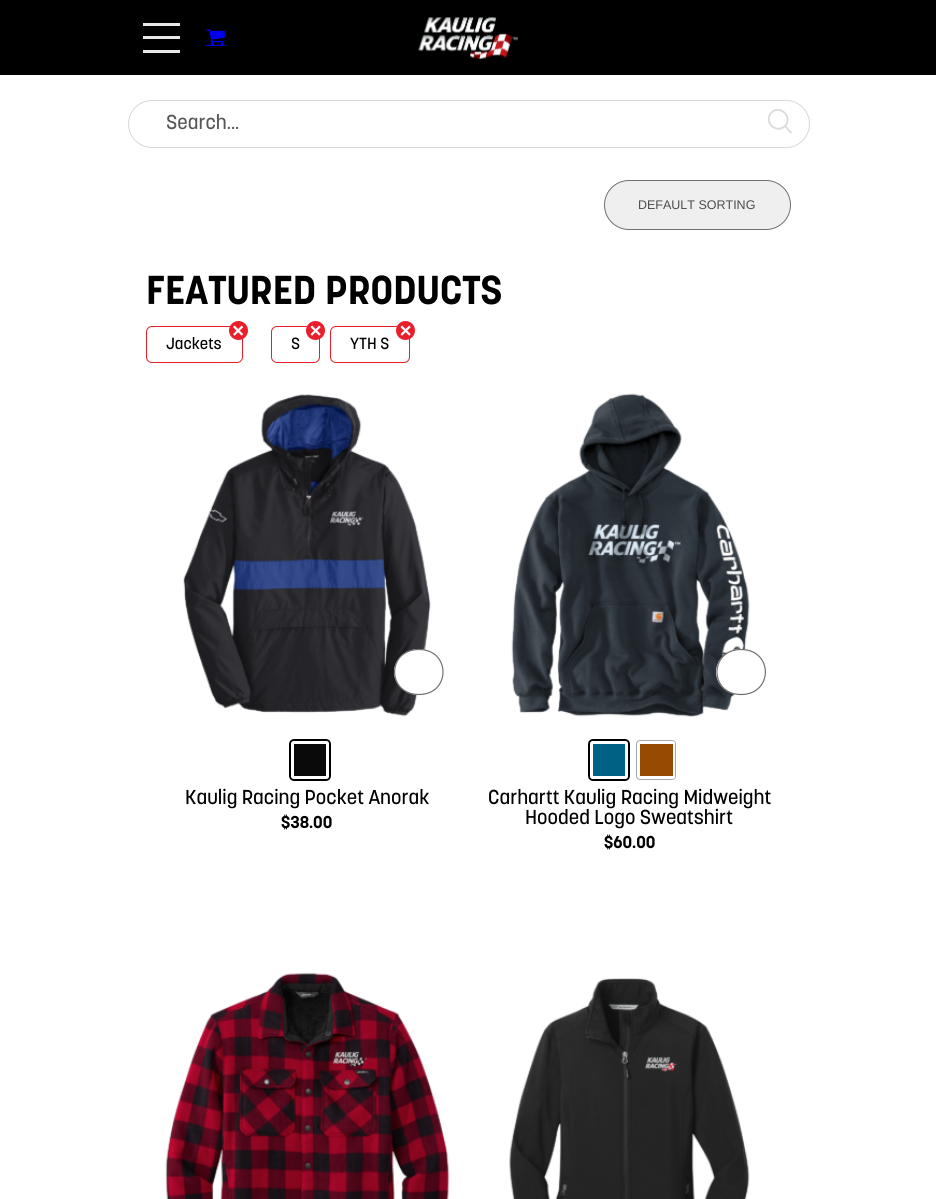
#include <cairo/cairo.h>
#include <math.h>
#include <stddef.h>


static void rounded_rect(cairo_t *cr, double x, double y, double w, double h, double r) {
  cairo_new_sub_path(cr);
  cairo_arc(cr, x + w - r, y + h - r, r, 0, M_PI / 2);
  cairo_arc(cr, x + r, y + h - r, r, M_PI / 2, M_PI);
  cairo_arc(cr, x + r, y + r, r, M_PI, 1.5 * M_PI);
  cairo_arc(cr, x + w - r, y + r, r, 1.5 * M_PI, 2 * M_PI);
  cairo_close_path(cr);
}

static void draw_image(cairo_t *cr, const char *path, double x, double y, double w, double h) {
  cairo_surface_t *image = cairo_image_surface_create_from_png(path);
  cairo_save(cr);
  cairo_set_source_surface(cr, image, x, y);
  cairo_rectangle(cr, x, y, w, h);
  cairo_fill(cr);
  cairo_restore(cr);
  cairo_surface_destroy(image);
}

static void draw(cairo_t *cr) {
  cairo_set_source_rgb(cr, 1, 1, 1);
  cairo_paint(cr);
  cairo_set_source_rgb(cr, 0, 0, 0);
  cairo_rectangle(cr, 0, 0, 936, 75);
  cairo_fill(cr);
  cairo_set_source_rgb(cr, 232 / 255.0, 232 / 255.0, 232 / 255.0);
  cairo_rectangle(cr, 143, 23, 37, 3);
  cairo_fill(cr);
  cairo_rectangle(cr, 143, 36, 37, 3);
  cairo_fill(cr);
  cairo_rectangle(cr, 143, 50, 37, 3);
  cairo_fill(cr);
  draw_image(cr, "images/1.png", 206, 29, 19, 16);
  draw_image(cr, "images/2.png", 418, 17, 100, 42);
  cairo_set_source_rgb(cr, 0, 0, 238 / 255.0);
  cairo_rectangle(cr, 206, 45, 19, 1);
  cairo_fill(cr);
  rounded_rect(cr, 128.5, 100.5, 681, 47, 23.5);
  cairo_set_source_rgb(cr, 216 / 255.0, 216 / 255.0, 216 / 255.0);
  cairo_set_line_width(cr, 1);
  cairo_stroke(cr);
  cairo_new_path(cr);
  cairo_move_to(cr, 791, 132.5);
  cairo_line_to(cr, 785, 126);
  cairo_move_to(cr, 785, 126);
  cairo_curve_to(cr, 793.5, 117.5, 780, 104, 771.5, 112.5);
  cairo_curve_to(cr, 763, 121.5, 776, 134.5, 785, 126);
  cairo_close_path(cr);
  cairo_set_source_rgb(cr, 220 / 255.0, 220 / 255.0, 220 / 255.0);
  cairo_set_line_width(cr, 1.9);
  cairo_set_line_cap(cr, CAIRO_LINE_CAP_ROUND);
  cairo_set_line_join(cr, CAIRO_LINE_JOIN_ROUND);
  cairo_stroke(cr);
  cairo_set_source_rgb(cr, 239 / 255.0, 239 / 255.0, 239 / 255.0);
  rounded_rect(cr, 604.5, 180.5, 186, 49, 24.5);
  cairo_fill_preserve(cr);
  cairo_set_source_rgb(cr, 112 / 255.0, 112 / 255.0, 112 / 255.0);
  cairo_set_line_width(cr, 1);
  cairo_set_line_cap(cr, CAIRO_LINE_CAP_BUTT);
  cairo_set_line_join(cr, CAIRO_LINE_JOIN_MITER);
  cairo_stroke(cr);
  rounded_rect(cr, 146.5, 326.5, 96, 36, 5.5);
  cairo_set_source_rgb(cr, 234 / 255.0, 29 / 255.0, 43 / 255.0);
  cairo_stroke(cr);
  cairo_arc(cr, 238.5, 330.5, 9.5, 0, 2 * M_PI);
  cairo_fill(cr);
  draw_image(cr, "images/3.png", 233, 325, 11, 11);
  rounded_rect(cr, 271.5, 326.5, 48, 36, 5.5);
  cairo_stroke(cr);
  cairo_arc(cr, 315.5, 330.5, 9.5, 0, 2 * M_PI);
  cairo_fill(cr);
  draw_image(cr, "images/4.png", 310, 325, 11, 11);
  rounded_rect(cr, 330.5, 326.5, 79, 36, 5.5);
  cairo_stroke(cr);
  cairo_arc(cr, 405.5, 330.5, 9.5, 0, 2 * M_PI);
  cairo_fill(cr);
  draw_image(cr, "images/4.png", 400, 325, 11, 11);
  draw_image(cr, "images/5.png", 183, 394, 248, 323);
  cairo_set_source_rgb(cr, 1, 1, 1);
  cairo_new_path(cr);
  cairo_move_to(cr, 419, 649);
  cairo_curve_to(cr, 433, 649, 444, 659.5, 444, 672);
  cairo_curve_to(cr, 444, 684.5, 433, 695, 419, 695);
  cairo_curve_to(cr, 405, 695, 394, 684.5, 394, 672);
  cairo_curve_to(cr, 394, 659.5, 405, 649, 419, 649);
  cairo_close_path(cr);
  cairo_fill(cr);
  cairo_new_path(cr);
  cairo_move_to(cr, 419, 649.5);
  cairo_curve_to(cr, 451, 649.5, 451, 694.5, 419, 694.5);
  cairo_curve_to(cr, 386.5, 694.5, 386.5, 649.5, 419, 649.5);
  cairo_close_path(cr);
  cairo_set_source_rgb(cr, 112 / 255.0, 112 / 255.0, 112 / 255.0);
  cairo_set_line_width(cr, 1.2);
  cairo_stroke(cr);
  rounded_rect(cr, 290.5, 740.5, 39, 39, 3.5);
  cairo_set_source_rgb(cr, 0, 0, 0);
  cairo_set_line_width(cr, 3);
  cairo_stroke(cr);
  cairo_set_source_rgb(cr, 1, 1, 1);
  rounded_rect(cr, 291, 741, 38, 38, 2.5);
  cairo_fill(cr);
  cairo_set_source_rgb(cr, 10 / 255.0, 10 / 255.0, 10 / 255.0);
  cairo_rectangle(cr, 294, 744, 32, 32);
  cairo_fill(cr);
  draw_image(cr, "images/6.png", 511, 393, 239, 324);
  cairo_set_source_rgb(cr, 1, 1, 1);
  cairo_new_path(cr);
  cairo_move_to(cr, 741, 649);
  cairo_curve_to(cr, 755, 649, 766, 659.5, 766, 672);
  cairo_curve_to(cr, 766, 684.5, 755, 695, 741, 695);
  cairo_curve_to(cr, 727, 695, 716, 684.5, 716, 672);
  cairo_curve_to(cr, 716, 659.5, 727, 649, 741, 649);
  cairo_close_path(cr);
  cairo_fill(cr);
  cairo_new_path(cr);
  cairo_move_to(cr, 741, 649.5);
  cairo_curve_to(cr, 773.5, 649.5, 773.5, 694.5, 741, 694.5);
  cairo_curve_to(cr, 709, 694.5, 709, 649.5, 741, 649.5);
  cairo_close_path(cr);
  cairo_set_source_rgb(cr, 112 / 255.0, 112 / 255.0, 112 / 255.0);
  cairo_set_line_width(cr, 1.2);
  cairo_stroke(cr);
  rounded_rect(cr, 589.5, 740.5, 39, 39, 3.5);
  cairo_set_source_rgb(cr, 0, 0, 0);
  cairo_set_line_width(cr, 3);
  cairo_stroke(cr);
  cairo_set_source_rgb(cr, 1, 1, 1);
  rounded_rect(cr, 590, 741, 38, 38, 2.5);
  cairo_fill(cr);
  cairo_set_source_rgb(cr, 0, 97 / 255.0, 132 / 255.0);
  cairo_rectangle(cr, 593, 744, 32, 32);
  cairo_fill(cr);
  rounded_rect(cr, 636.5, 740.5, 39, 39, 3.5);
  cairo_set_source_rgb(cr, 168 / 255.0, 168 / 255.0, 168 / 255.0);
  cairo_set_line_width(cr, 1);
  cairo_stroke(cr);
  cairo_set_source_rgb(cr, 1, 1, 1);
  rounded_rect(cr, 638, 741, 37, 38, 2.5);
  cairo_fill(cr);
  cairo_set_source_rgb(cr, 150 / 255.0, 75 / 255.0, 0);
  cairo_rectangle(cr, 640, 744, 33, 32);
  cairo_fill(cr);
  draw_image(cr, "images/7.png", 165, 972, 285, 227);
  draw_image(cr, "images/8.png", 509, 978, 241, 221);
  cairo_select_font_face(cr, "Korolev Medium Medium", CAIRO_FONT_SLANT_NORMAL, CAIRO_FONT_WEIGHT_NORMAL);
  cairo_set_font_size(cr, 20);
  cairo_set_source_rgb(cr, 87 / 255.0, 87 / 255.0, 87 / 255.0);
  cairo_move_to(cr, 166, 129);
  cairo_show_text(cr, "Search...");
  cairo_select_font_face(cr, "Liberation Sans", CAIRO_FONT_SLANT_NORMAL, CAIRO_FONT_WEIGHT_NORMAL);
  cairo_set_font_size(cr, 12.5);
  cairo_set_source_rgb(cr, 75 / 255.0, 75 / 255.0, 75 / 255.0);
  cairo_move_to(cr, 638, 209);
  cairo_show_text(cr, "DEFAULT SORTING");
  cairo_select_font_face(cr, "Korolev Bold", CAIRO_FONT_SLANT_NORMAL, CAIRO_FONT_WEIGHT_BOLD);
  cairo_set_font_size(cr, 40);
  cairo_set_source_rgb(cr, 0, 0, 0);
  cairo_move_to(cr, 146, 304);
  cairo_show_text(cr, "FEATURED PRODUCTS");
  cairo_select_font_face(cr, "Korolev Medium Medium", CAIRO_FONT_SLANT_NORMAL, CAIRO_FONT_WEIGHT_NORMAL);
  cairo_set_font_size(cr, 16);
  cairo_move_to(cr, 166, 349);
  cairo_show_text(cr, "Jackets");
  cairo_move_to(cr, 291, 349);
  cairo_show_text(cr, "S");
  cairo_move_to(cr, 350, 349);
  cairo_show_text(cr, "YTH S");
  cairo_set_font_size(cr, 20);
  cairo_move_to(cr, 185, 804);
  cairo_show_text(cr, "Kaulig Racing Pocket Anorak");
  cairo_select_font_face(cr, "Korolev Bold", CAIRO_FONT_SLANT_NORMAL, CAIRO_FONT_WEIGHT_BOLD);
  cairo_set_font_size(cr, 17);
  cairo_move_to(cr, 281, 828);
  cairo_show_text(cr, "$38.00");
  cairo_select_font_face(cr, "Korolev Medium Medium", CAIRO_FONT_SLANT_NORMAL, CAIRO_FONT_WEIGHT_NORMAL);
  cairo_set_font_size(cr, 20);
  cairo_move_to(cr, 488, 804);
  cairo_show_text(cr, "Carhartt Kaulig Racing Midweight");
  cairo_move_to(cr, 525, 824);
  cairo_show_text(cr, "Hooded Logo Sweatshirt");
  cairo_select_font_face(cr, "Korolev Bold", CAIRO_FONT_SLANT_NORMAL, CAIRO_FONT_WEIGHT_BOLD);
  cairo_set_font_size(cr, 17);
  cairo_move_to(cr, 604, 848);
  cairo_show_text(cr, "$60.00");
}

int main(void) {
  cairo_surface_t *surface = cairo_image_surface_create(CAIRO_FORMAT_RGB24, 936, 1199);
  cairo_t *cr = cairo_create(surface);
  cairo_font_options_t *options = cairo_font_options_create();
  cairo_font_options_set_hint_metrics(options, CAIRO_HINT_METRICS_OFF);
  cairo_font_options_set_hint_style(options, CAIRO_HINT_STYLE_NONE);
  cairo_set_font_options(cr, options);
  cairo_set_miter_limit(cr, 4);
  draw(cr);
  cairo_surface_write_to_png(surface, "out.png");
  cairo_font_options_destroy(options);
  cairo_destroy(cr);
  cairo_surface_destroy(surface);
  return 0;
}
